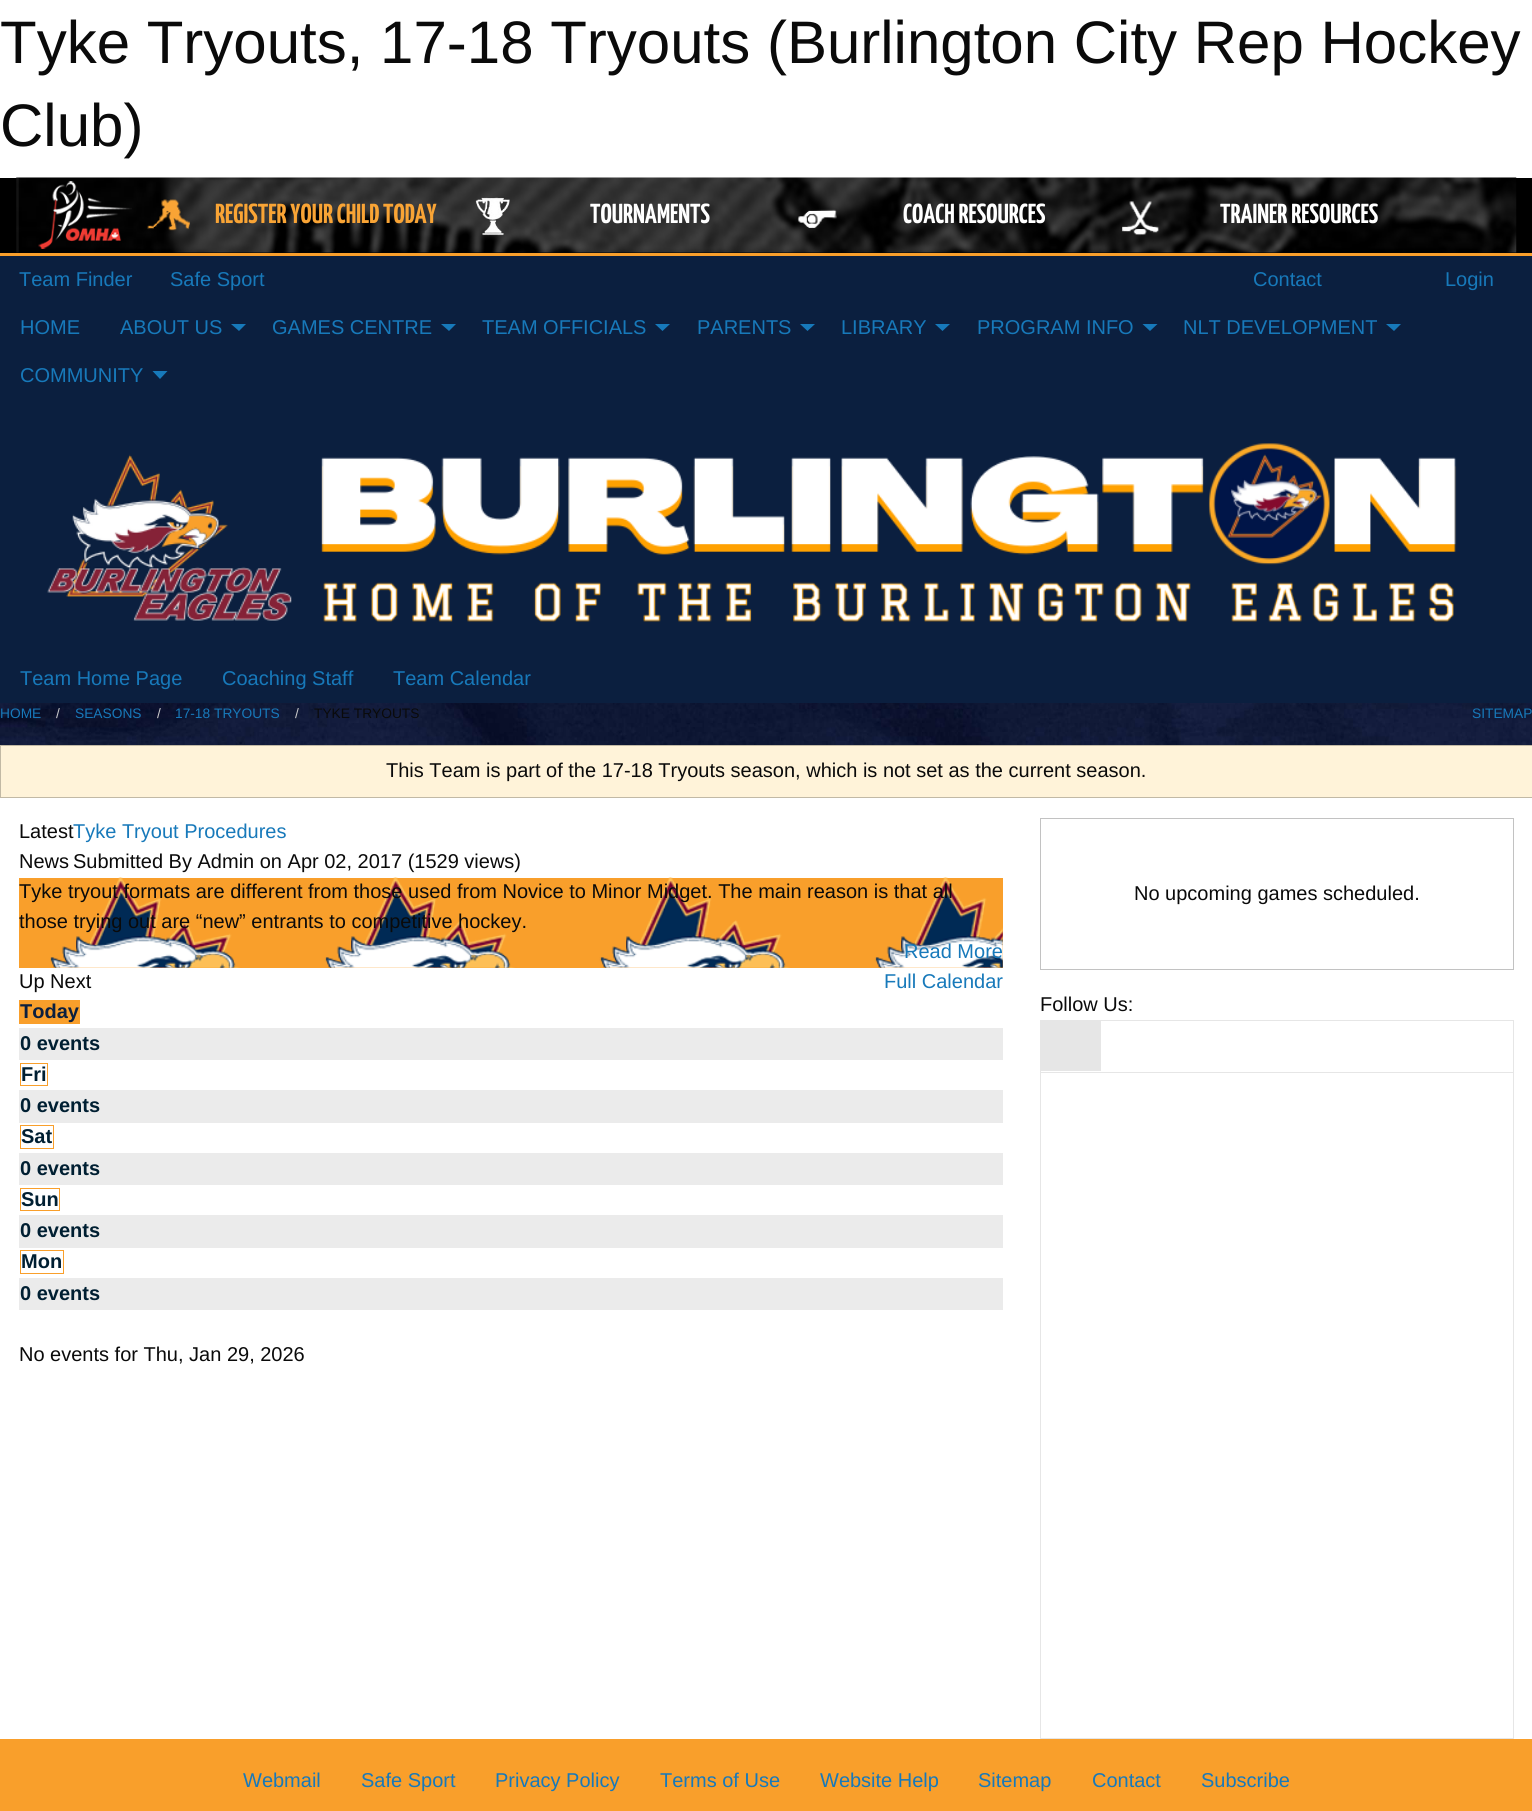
#include <cairo/cairo.h>
#include <math.h>
#include <stddef.h>


static void draw_image(cairo_t *cr, const char *path, double x, double y, double w, double h) {
  cairo_surface_t *image = cairo_image_surface_create_from_png(path);
  cairo_save(cr);
  cairo_set_source_surface(cr, image, x, y);
  cairo_rectangle(cr, x, y, w, h);
  cairo_fill(cr);
  cairo_restore(cr);
  cairo_surface_destroy(image);
}

static void draw(cairo_t *cr) {
  cairo_set_source_rgb(cr, 1, 1, 1);
  cairo_paint(cr);
  cairo_set_source_rgb(cr, 0, 0, 0);
  cairo_rectangle(cr, 0, 178, 1532, 75);
  cairo_fill(cr);
  cairo_set_source_rgb(cr, 249 / 255.0, 159 / 255.0, 43 / 255.0);
  cairo_rectangle(cr, 0, 253, 1532, 3);
  cairo_fill(cr);
  draw_image(cr, "images/1.png", 16, 177, 1501, 76);
  draw_image(cr, "images/2.png", 38, 181, 94, 68);
  draw_image(cr, "images/3.png", 147, 199, 43, 32);
  draw_image(cr, "images/4.png", 475, 197, 35, 39);
  draw_image(cr, "images/5.png", 797, 209, 40, 19);
  draw_image(cr, "images/6.png", 1122, 201, 37, 35);
  draw_image(cr, "images/7.png", 0, 703, 1532, 42);
  cairo_set_source_rgb(cr, 11 / 255.0, 31 / 255.0, 63 / 255.0);
  cairo_rectangle(cr, 0, 256, 1532, 144);
  cairo_fill(cr);
  cairo_set_source_rgb(cr, 23 / 255.0, 121 / 255.0, 186 / 255.0);
  cairo_new_path(cr);
  cairo_move_to(cr, 231, 324);
  cairo_line_to(cr, 246, 324);
  cairo_line_to(cr, 239, 331);
  cairo_close_path(cr);
  cairo_fill(cr);
  cairo_new_path(cr);
  cairo_move_to(cr, 441, 324);
  cairo_line_to(cr, 456, 324);
  cairo_line_to(cr, 449, 331);
  cairo_close_path(cr);
  cairo_fill(cr);
  cairo_new_path(cr);
  cairo_move_to(cr, 655, 324);
  cairo_line_to(cr, 670, 324);
  cairo_line_to(cr, 662.5, 331);
  cairo_close_path(cr);
  cairo_fill(cr);
  cairo_new_path(cr);
  cairo_move_to(cr, 800, 324);
  cairo_line_to(cr, 815, 324);
  cairo_line_to(cr, 807.5, 331);
  cairo_close_path(cr);
  cairo_fill(cr);
  cairo_new_path(cr);
  cairo_move_to(cr, 935, 324);
  cairo_line_to(cr, 950, 324);
  cairo_line_to(cr, 942.5, 331);
  cairo_close_path(cr);
  cairo_fill(cr);
  cairo_new_path(cr);
  cairo_move_to(cr, 1142.5, 324);
  cairo_line_to(cr, 1157.5, 324);
  cairo_line_to(cr, 1150, 331);
  cairo_close_path(cr);
  cairo_fill(cr);
  cairo_new_path(cr);
  cairo_move_to(cr, 1386, 324);
  cairo_line_to(cr, 1401, 324);
  cairo_line_to(cr, 1394, 331);
  cairo_close_path(cr);
  cairo_fill(cr);
  cairo_new_path(cr);
  cairo_move_to(cr, 152.5, 371);
  cairo_line_to(cr, 167.5, 371);
  cairo_line_to(cr, 160, 379);
  cairo_close_path(cr);
  cairo_fill(cr);
  draw_image(cr, "images/8.png", 0, 400, 1532, 255);
  cairo_set_source_rgb(cr, 11 / 255.0, 31 / 255.0, 63 / 255.0);
  cairo_rectangle(cr, 0, 655, 1532, 48);
  cairo_fill(cr);
  cairo_set_source_rgb(cr, 1, 243 / 255.0, 217 / 255.0);
  cairo_rectangle(cr, 0.5, 745.5, 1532, 52);
  cairo_fill_preserve(cr);
  cairo_set_source_rgb(cr, 194 / 255.0, 185 / 255.0, 165 / 255.0);
  cairo_set_line_width(cr, 1);
  cairo_stroke(cr);
  cairo_set_source_rgb(cr, 249 / 255.0, 159 / 255.0, 43 / 255.0);
  cairo_rectangle(cr, 19, 878, 984, 90);
  cairo_fill(cr);
  draw_image(cr, "images/9.png", 50, 877, 953, 91);
  draw_image(cr, "images/10.png", 50, 877, 953, 91);
  cairo_rectangle(cr, 19, 1000, 61, 24);
  cairo_fill(cr);
  cairo_set_source_rgb(cr, 235 / 255.0, 235 / 255.0, 235 / 255.0);
  cairo_rectangle(cr, 19, 1028, 984, 32);
  cairo_fill(cr);
  cairo_rectangle(cr, 20.5, 1063.5, 27, 22);
  cairo_set_source_rgb(cr, 249 / 255.0, 159 / 255.0, 43 / 255.0);
  cairo_stroke(cr);
  cairo_set_source_rgb(cr, 235 / 255.0, 235 / 255.0, 235 / 255.0);
  cairo_rectangle(cr, 19, 1090, 984, 33);
  cairo_fill(cr);
  cairo_rectangle(cr, 20.5, 1125.5, 33, 23);
  cairo_set_source_rgb(cr, 249 / 255.0, 159 / 255.0, 43 / 255.0);
  cairo_stroke(cr);
  cairo_set_source_rgb(cr, 235 / 255.0, 235 / 255.0, 235 / 255.0);
  cairo_rectangle(cr, 19, 1153, 984, 32);
  cairo_fill(cr);
  cairo_rectangle(cr, 20.5, 1188.5, 39, 22);
  cairo_set_source_rgb(cr, 249 / 255.0, 159 / 255.0, 43 / 255.0);
  cairo_stroke(cr);
  cairo_set_source_rgb(cr, 235 / 255.0, 235 / 255.0, 235 / 255.0);
  cairo_rectangle(cr, 19, 1215, 984, 33);
  cairo_fill(cr);
  cairo_rectangle(cr, 20.5, 1250.5, 43, 23);
  cairo_set_source_rgb(cr, 249 / 255.0, 159 / 255.0, 43 / 255.0);
  cairo_stroke(cr);
  cairo_set_source_rgb(cr, 235 / 255.0, 235 / 255.0, 235 / 255.0);
  cairo_rectangle(cr, 19, 1278, 984, 32);
  cairo_fill(cr);
  cairo_rectangle(cr, 1040.5, 818.5, 473, 151);
  cairo_set_source_rgb(cr, 194 / 255.0, 194 / 255.0, 194 / 255.0);
  cairo_stroke(cr);
  cairo_rectangle(cr, 1040.5, 1020.5, 473, 52);
  cairo_set_source_rgb(cr, 230 / 255.0, 230 / 255.0, 230 / 255.0);
  cairo_stroke(cr);
  cairo_rectangle(cr, 1041, 1021, 60, 50);
  cairo_fill(cr);
  cairo_rectangle(cr, 1513, 1073, 1, 666);
  cairo_fill(cr);
  cairo_rectangle(cr, 1040, 1738, 474, 1);
  cairo_fill(cr);
  cairo_rectangle(cr, 1040, 1073, 1, 666);
  cairo_fill(cr);
  cairo_set_source_rgb(cr, 249 / 255.0, 159 / 255.0, 43 / 255.0);
  cairo_rectangle(cr, 0, 1739, 1532, 72);
  cairo_fill(cr);
  cairo_select_font_face(cr, "Liberation Sans", CAIRO_FONT_SLANT_NORMAL, CAIRO_FONT_WEIGHT_NORMAL);
  cairo_set_font_size(cr, 60);
  cairo_set_source_rgb(cr, 10 / 255.0, 10 / 255.0, 10 / 255.0);
  cairo_move_to(cr, 0, 63);
  cairo_show_text(cr, "Tyke Tryouts, 17-18 Tryouts (Burlington City Rep Hockey");
  cairo_move_to(cr, 0, 146);
  cairo_show_text(cr, "Club)");
  cairo_select_font_face(cr, "Yanone Kaffeesatz ExtraLight", CAIRO_FONT_SLANT_NORMAL, CAIRO_FONT_WEIGHT_NORMAL);
  cairo_set_font_size(cr, 27.5);
  cairo_set_source_rgb(cr, 249 / 255.0, 164 / 255.0, 53 / 255.0);
  cairo_move_to(cr, 215, 223);
  cairo_show_text(cr, "REGISTER YOUR CHILD TODAY");
  cairo_set_source_rgb(cr, 1, 1, 1);
  cairo_move_to(cr, 590, 223);
  cairo_show_text(cr, "TOURNAMENTS");
  cairo_move_to(cr, 903, 223);
  cairo_show_text(cr, "COACH RESOURCES");
  cairo_move_to(cr, 1220, 223);
  cairo_show_text(cr, "TRAINER RESOURCES");
  cairo_select_font_face(cr, "Liberation Sans", CAIRO_FONT_SLANT_NORMAL, CAIRO_FONT_WEIGHT_NORMAL);
  cairo_set_font_size(cr, 20);
  cairo_set_source_rgb(cr, 23 / 255.0, 121 / 255.0, 186 / 255.0);
  cairo_move_to(cr, 19, 286);
  cairo_show_text(cr, "Team Finder");
  cairo_move_to(cr, 170, 286);
  cairo_show_text(cr, "Safe Sport");
  cairo_move_to(cr, 1253, 286);
  cairo_show_text(cr, "Contact");
  cairo_move_to(cr, 1445, 286);
  cairo_show_text(cr, "Login");
  cairo_move_to(cr, 20, 334);
  cairo_show_text(cr, "HOME");
  cairo_move_to(cr, 120, 334);
  cairo_show_text(cr, "ABOUT US");
  cairo_move_to(cr, 272, 334);
  cairo_show_text(cr, "GAMES CENTRE");
  cairo_move_to(cr, 482, 334);
  cairo_show_text(cr, "TEAM OFFICIALS");
  cairo_move_to(cr, 697, 334);
  cairo_show_text(cr, "PARENTS");
  cairo_move_to(cr, 841, 334);
  cairo_show_text(cr, "LIBRARY");
  cairo_move_to(cr, 977, 334);
  cairo_show_text(cr, "PROGRAM INFO");
  cairo_move_to(cr, 1183, 334);
  cairo_show_text(cr, "NLT DEVELOPMENT");
  cairo_move_to(cr, 20, 382);
  cairo_show_text(cr, "COMMUNITY");
  cairo_move_to(cr, 20, 685);
  cairo_show_text(cr, "Team Home Page");
  cairo_move_to(cr, 222, 685);
  cairo_show_text(cr, "Coaching Staff");
  cairo_move_to(cr, 393, 685);
  cairo_show_text(cr, "Team Calendar");
  cairo_set_font_size(cr, 13.75);
  cairo_move_to(cr, 0, 718);
  cairo_show_text(cr, "HOME");
  cairo_set_source_rgb(cr, 202 / 255.0, 202 / 255.0, 202 / 255.0);
  cairo_move_to(cr, 56, 718);
  cairo_show_text(cr, "/");
  cairo_set_source_rgb(cr, 23 / 255.0, 121 / 255.0, 186 / 255.0);
  cairo_move_to(cr, 75, 718);
  cairo_show_text(cr, "SEASONS");
  cairo_set_source_rgb(cr, 202 / 255.0, 202 / 255.0, 202 / 255.0);
  cairo_move_to(cr, 157, 718);
  cairo_show_text(cr, "/");
  cairo_set_source_rgb(cr, 23 / 255.0, 121 / 255.0, 186 / 255.0);
  cairo_move_to(cr, 175, 718);
  cairo_show_text(cr, "17-18 TRYOUTS");
  cairo_set_source_rgb(cr, 202 / 255.0, 202 / 255.0, 202 / 255.0);
  cairo_move_to(cr, 295, 718);
  cairo_show_text(cr, "/");
  cairo_set_source_rgb(cr, 10 / 255.0, 10 / 255.0, 10 / 255.0);
  cairo_move_to(cr, 314, 718);
  cairo_show_text(cr, "TYKE TRYOUTS");
  cairo_set_source_rgb(cr, 23 / 255.0, 121 / 255.0, 186 / 255.0);
  cairo_move_to(cr, 1472, 718);
  cairo_show_text(cr, "SITEMAP");
  cairo_set_font_size(cr, 20);
  cairo_set_source_rgb(cr, 10 / 255.0, 10 / 255.0, 10 / 255.0);
  cairo_move_to(cr, 386, 777);
  cairo_show_text(cr, "This Team is part of the 17-18 Tryouts season, which is not set as the current season.");
  cairo_move_to(cr, 19, 838);
  cairo_show_text(cr, "Latest");
  cairo_move_to(cr, 19, 868);
  cairo_show_text(cr, "News");
  cairo_set_source_rgb(cr, 23 / 255.0, 121 / 255.0, 186 / 255.0);
  cairo_move_to(cr, 73, 838);
  cairo_show_text(cr, "Tyke Tryout Procedures");
  cairo_set_source_rgb(cr, 10 / 255.0, 10 / 255.0, 10 / 255.0);
  cairo_move_to(cr, 73, 868);
  cairo_show_text(cr, "Submitted By Admin on Apr 02, 2017 (1529 views)");
  cairo_move_to(cr, 19, 898);
  cairo_show_text(cr, "Tyke tryout formats are different from those used from Novice to Minor Midget. The main reason is that all");
  cairo_move_to(cr, 19, 928);
  cairo_show_text(cr, "those trying out are “new” entrants to competitive hockey.");
  cairo_set_source_rgb(cr, 23 / 255.0, 121 / 255.0, 186 / 255.0);
  cairo_move_to(cr, 904, 958);
  cairo_show_text(cr, "Read More");
  cairo_set_source_rgb(cr, 10 / 255.0, 10 / 255.0, 10 / 255.0);
  cairo_move_to(cr, 19, 988);
  cairo_show_text(cr, "Up Next");
  cairo_set_source_rgb(cr, 23 / 255.0, 121 / 255.0, 186 / 255.0);
  cairo_move_to(cr, 884, 988);
  cairo_show_text(cr, "Full Calendar");
  cairo_select_font_face(cr, "Liberation Sans", CAIRO_FONT_SLANT_NORMAL, CAIRO_FONT_WEIGHT_BOLD);
  cairo_set_source_rgb(cr, 11 / 255.0, 31 / 255.0, 63 / 255.0);
  cairo_move_to(cr, 20, 1018);
  cairo_show_text(cr, "Today");
  cairo_set_source_rgb(cr, 0, 31 / 255.0, 50 / 255.0);
  cairo_move_to(cr, 20, 1050);
  cairo_show_text(cr, "0 events");
  cairo_move_to(cr, 21, 1081);
  cairo_show_text(cr, "Fri");
  cairo_move_to(cr, 20, 1112);
  cairo_show_text(cr, "0 events");
  cairo_move_to(cr, 21, 1143);
  cairo_show_text(cr, "Sat");
  cairo_move_to(cr, 20, 1175);
  cairo_show_text(cr, "0 events");
  cairo_move_to(cr, 21, 1206);
  cairo_show_text(cr, "Sun");
  cairo_move_to(cr, 20, 1237);
  cairo_show_text(cr, "0 events");
  cairo_move_to(cr, 21, 1268);
  cairo_show_text(cr, "Mon");
  cairo_move_to(cr, 20, 1300);
  cairo_show_text(cr, "0 events");
  cairo_select_font_face(cr, "Liberation Sans", CAIRO_FONT_SLANT_NORMAL, CAIRO_FONT_WEIGHT_NORMAL);
  cairo_set_source_rgb(cr, 10 / 255.0, 10 / 255.0, 10 / 255.0);
  cairo_move_to(cr, 19, 1361);
  cairo_show_text(cr, "No events for Thu, Jan 29, 2026");
  cairo_move_to(cr, 1134, 900);
  cairo_show_text(cr, "No upcoming games scheduled.");
  cairo_move_to(cr, 1040, 1011);
  cairo_show_text(cr, "Follow Us:");
  cairo_set_source_rgb(cr, 23 / 255.0, 121 / 255.0, 186 / 255.0);
  cairo_move_to(cr, 243, 1787);
  cairo_show_text(cr, "Webmail");
  cairo_move_to(cr, 361, 1787);
  cairo_show_text(cr, "Safe Sport");
  cairo_move_to(cr, 495, 1787);
  cairo_show_text(cr, "Privacy Policy");
  cairo_move_to(cr, 660, 1787);
  cairo_show_text(cr, "Terms of Use");
  cairo_move_to(cr, 820, 1787);
  cairo_show_text(cr, "Website Help");
  cairo_move_to(cr, 978, 1787);
  cairo_show_text(cr, "Sitemap");
  cairo_move_to(cr, 1092, 1787);
  cairo_show_text(cr, "Contact");
  cairo_move_to(cr, 1201, 1787);
  cairo_show_text(cr, "Subscribe");
}

int main(void) {
  cairo_surface_t *surface = cairo_image_surface_create(CAIRO_FORMAT_RGB24, 1532, 1811);
  cairo_t *cr = cairo_create(surface);
  cairo_font_options_t *options = cairo_font_options_create();
  cairo_font_options_set_hint_metrics(options, CAIRO_HINT_METRICS_OFF);
  cairo_font_options_set_hint_style(options, CAIRO_HINT_STYLE_NONE);
  cairo_set_font_options(cr, options);
  cairo_set_miter_limit(cr, 4);
  draw(cr);
  cairo_surface_write_to_png(surface, "out.png");
  cairo_font_options_destroy(options);
  cairo_destroy(cr);
  cairo_surface_destroy(surface);
  return 0;
}
